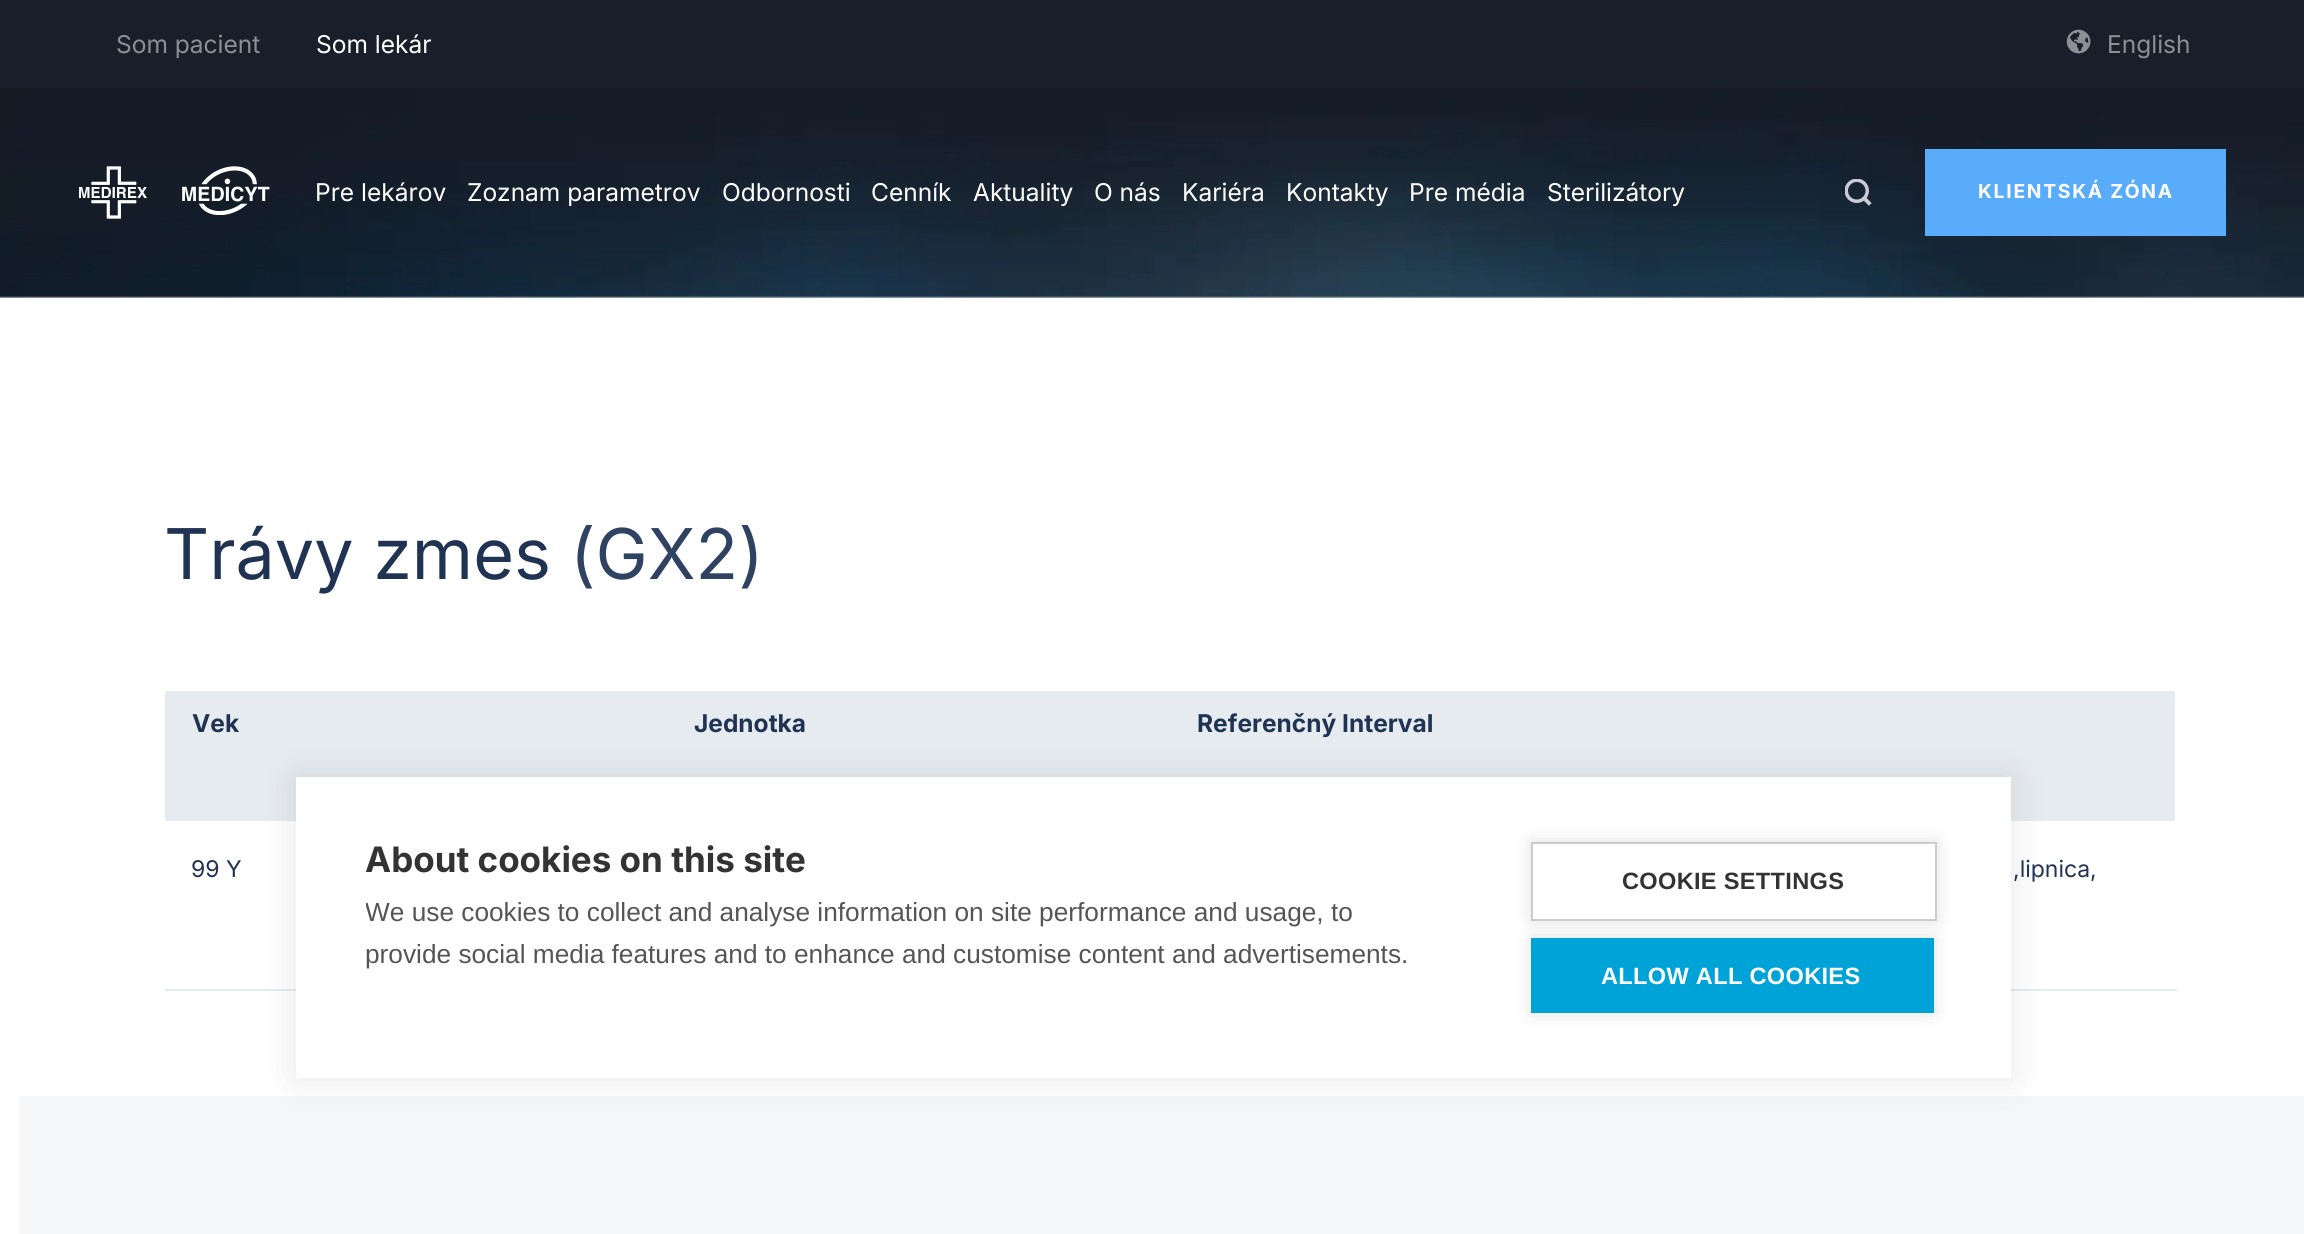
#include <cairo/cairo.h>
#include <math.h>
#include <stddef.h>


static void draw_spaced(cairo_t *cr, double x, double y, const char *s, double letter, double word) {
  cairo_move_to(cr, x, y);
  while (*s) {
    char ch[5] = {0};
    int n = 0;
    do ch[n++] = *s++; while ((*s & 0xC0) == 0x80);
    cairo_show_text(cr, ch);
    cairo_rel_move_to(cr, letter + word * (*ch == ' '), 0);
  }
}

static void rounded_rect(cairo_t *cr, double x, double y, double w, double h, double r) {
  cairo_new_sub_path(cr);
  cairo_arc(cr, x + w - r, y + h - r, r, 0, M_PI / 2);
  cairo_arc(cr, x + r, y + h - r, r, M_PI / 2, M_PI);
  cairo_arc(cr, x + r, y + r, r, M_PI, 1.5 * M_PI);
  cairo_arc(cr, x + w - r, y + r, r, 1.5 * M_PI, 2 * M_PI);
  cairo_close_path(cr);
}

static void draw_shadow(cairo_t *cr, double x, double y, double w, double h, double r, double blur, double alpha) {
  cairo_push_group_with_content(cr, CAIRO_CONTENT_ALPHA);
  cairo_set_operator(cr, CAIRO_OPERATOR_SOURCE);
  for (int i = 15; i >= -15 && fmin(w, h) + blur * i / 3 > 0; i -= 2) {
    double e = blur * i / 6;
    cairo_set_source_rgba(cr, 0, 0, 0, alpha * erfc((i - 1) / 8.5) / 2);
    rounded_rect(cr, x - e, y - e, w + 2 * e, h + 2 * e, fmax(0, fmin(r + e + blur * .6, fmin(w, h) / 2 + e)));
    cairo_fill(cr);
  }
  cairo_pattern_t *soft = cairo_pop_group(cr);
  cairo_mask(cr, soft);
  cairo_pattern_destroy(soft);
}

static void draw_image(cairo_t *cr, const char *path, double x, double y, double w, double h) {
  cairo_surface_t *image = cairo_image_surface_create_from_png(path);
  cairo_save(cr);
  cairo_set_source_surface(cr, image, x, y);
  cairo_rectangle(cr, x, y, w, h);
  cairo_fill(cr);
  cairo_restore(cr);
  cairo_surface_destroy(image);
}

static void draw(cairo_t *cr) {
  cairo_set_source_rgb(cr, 1, 1, 1);
  cairo_paint(cr);
  draw_image(cr, "images/1.png", 0, 88, 2304, 210);
  cairo_set_source_rgb(cr, 24 / 255.0, 31 / 255.0, 43 / 255.0);
  cairo_rectangle(cr, 0, 0, 2304, 88);
  cairo_fill(cr);
  draw_image(cr, "images/2.png", 2066, 29, 25, 25);
  draw_image(cr, "images/3.png", 79, 166, 68, 53);
  draw_image(cr, "images/4.png", 182, 166, 88, 49);
  draw_image(cr, "images/5.png", 1845, 179, 27, 27);
  cairo_set_source_rgb(cr, 88 / 255.0, 172 / 255.0, 250 / 255.0);
  cairo_rectangle(cr, 1925, 149, 301, 87);
  cairo_fill(cr);
  cairo_set_source_rgb(cr, 230 / 255.0, 235 / 255.0, 240 / 255.0);
  cairo_rectangle(cr, 165, 691, 502, 130);
  cairo_fill(cr);
  cairo_rectangle(cr, 667, 691, 504, 86);
  cairo_fill(cr);
  cairo_rectangle(cr, 1171, 691, 1004, 65);
  cairo_fill(cr);
  cairo_rectangle(cr, 1171, 756, 502, 21);
  cairo_fill(cr);
  cairo_rectangle(cr, 1673, 756, 502, 65);
  cairo_fill(cr);
  cairo_rectangle(cr, 165, 989, 131, 2);
  cairo_fill(cr);
  cairo_rectangle(cr, 2011, 989, 166, 2);
  cairo_fill(cr);
  cairo_set_source_rgb(cr, 244 / 255.0, 246 / 255.0, 248 / 255.0);
  cairo_rectangle(cr, 19, 1096, 2285, 138);
  cairo_fill(cr);
  cairo_set_source_rgb(cr, 0, 0, 0);
  draw_shadow(cr, 296, 777, 1715, 301, 0, 17.5, 0.1);
  cairo_set_source_rgb(cr, 1, 1, 1);
  cairo_rectangle(cr, 296, 777, 1715, 301);
  cairo_fill(cr);
  cairo_save(cr);
  cairo_set_fill_rule(cr, CAIRO_FILL_RULE_EVEN_ODD);
  cairo_new_path(cr);
  cairo_move_to(cr, 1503, 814);
  cairo_line_to(cr, 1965, 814);
  cairo_line_to(cr, 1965, 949);
  cairo_line_to(cr, 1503, 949);
  cairo_close_path(cr);
  cairo_move_to(cr, 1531, 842);
  cairo_line_to(cr, 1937, 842);
  cairo_line_to(cr, 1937, 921);
  cairo_line_to(cr, 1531, 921);
  cairo_close_path(cr);
  cairo_clip(cr);
  cairo_set_source_rgb(cr, 0, 0, 0);
  draw_shadow(cr, 1531, 842, 406, 79, 0, 9, 0.12);
  cairo_restore(cr);
  cairo_rectangle(cr, 1532, 843, 404, 77);
  cairo_set_source_rgb(cr, 204 / 255.0, 204 / 255.0, 204 / 255.0);
  cairo_stroke(cr);
  cairo_set_source_rgb(cr, 0, 0, 0);
  draw_shadow(cr, 1531, 938, 403, 75, 0, 9, 0.12);
  cairo_set_source_rgb(cr, 0, 163 / 255.0, 215 / 255.0);
  cairo_rectangle(cr, 1531, 938, 403, 75);
  cairo_fill(cr);
  cairo_select_font_face(cr, "Inter", CAIRO_FONT_SLANT_NORMAL, CAIRO_FONT_WEIGHT_NORMAL);
  cairo_set_font_size(cr, 24.5);
  cairo_set_source_rgb(cr, 140 / 255.0, 143 / 255.0, 149 / 255.0);
  cairo_move_to(cr, 116, 53);
  cairo_show_text(cr, "Som pacient");
  cairo_set_source_rgb(cr, 1, 1, 1);
  cairo_move_to(cr, 316, 53);
  cairo_show_text(cr, "Som lekár");
  cairo_set_source_rgb(cr, 140 / 255.0, 143 / 255.0, 149 / 255.0);
  cairo_move_to(cr, 2107, 53);
  cairo_show_text(cr, "English");
  cairo_set_source_rgb(cr, 1, 1, 1);
  cairo_move_to(cr, 315, 201);
  cairo_show_text(cr, "Pre lekárov");
  cairo_move_to(cr, 467, 201);
  cairo_show_text(cr, "Zoznam parametrov");
  cairo_move_to(cr, 722, 201);
  cairo_show_text(cr, "Odbornosti");
  cairo_move_to(cr, 871, 201);
  cairo_show_text(cr, "Cenník");
  cairo_move_to(cr, 973, 201);
  cairo_show_text(cr, "Aktuality");
  cairo_move_to(cr, 1094, 201);
  cairo_show_text(cr, "O nás");
  cairo_move_to(cr, 1182, 201);
  cairo_show_text(cr, "Kariéra");
  cairo_move_to(cr, 1286, 201);
  cairo_show_text(cr, "Kontakty");
  cairo_move_to(cr, 1409, 201);
  cairo_show_text(cr, "Pre média");
  cairo_move_to(cr, 1547, 201);
  cairo_show_text(cr, "Sterilizátory");
  cairo_select_font_face(cr, "Inter", CAIRO_FONT_SLANT_NORMAL, CAIRO_FONT_WEIGHT_BOLD);
  cairo_set_font_size(cr, 19.25);
  draw_spaced(cr, 1978, 198, "KLIENTSKÁ ZÓNA", 1.75, 0);
  cairo_select_font_face(cr, "Inter", CAIRO_FONT_SLANT_NORMAL, CAIRO_FONT_WEIGHT_NORMAL);
  cairo_set_font_size(cr, 70);
  cairo_set_source_rgb(cr, 33 / 255.0, 51 / 255.0, 83 / 255.0);
  cairo_move_to(cr, 164, 579);
  cairo_show_text(cr, "Trávy zmes");
  cairo_set_source_rgb(cr, 48 / 255.0, 66 / 255.0, 98 / 255.0);
  cairo_move_to(cr, 570, 579);
  cairo_show_text(cr, "(GX2)");
  cairo_select_font_face(cr, "Inter", CAIRO_FONT_SLANT_NORMAL, CAIRO_FONT_WEIGHT_BOLD);
  cairo_set_font_size(cr, 24.5);
  cairo_set_source_rgb(cr, 33 / 255.0, 51 / 255.0, 83 / 255.0);
  cairo_move_to(cr, 192, 732);
  cairo_show_text(cr, "Vek");
  cairo_move_to(cr, 694, 732);
  cairo_show_text(cr, "Jednotka");
  cairo_move_to(cr, 1197, 732);
  cairo_show_text(cr, "Referenčný Interval");
  cairo_select_font_face(cr, "Inter", CAIRO_FONT_SLANT_NORMAL, CAIRO_FONT_WEIGHT_NORMAL);
  cairo_set_font_size(cr, 23);
  cairo_move_to(cr, 191, 877);
  cairo_show_text(cr, "99 Y");
  cairo_move_to(cr, 2013, 877);
  cairo_show_text(cr, ",lipnica,");
  cairo_select_font_face(cr, "Inter", CAIRO_FONT_SLANT_NORMAL, CAIRO_FONT_WEIGHT_BOLD);
  cairo_set_font_size(cr, 35);
  cairo_set_source_rgb(cr, 51 / 255.0, 51 / 255.0, 51 / 255.0);
  cairo_move_to(cr, 365, 872);
  cairo_show_text(cr, "About cookies on this site");
  cairo_save(cr);
  cairo_rectangle(cr, 366, 842, 1060, 135);
  cairo_clip(cr);
  cairo_select_font_face(cr, "Liberation Sans", CAIRO_FONT_SLANT_NORMAL, CAIRO_FONT_WEIGHT_NORMAL);
  cairo_set_font_size(cr, 26.25);
  cairo_set_source_rgb(cr, 85 / 255.0, 85 / 255.0, 85 / 255.0);
  cairo_move_to(cr, 365, 921);
  cairo_show_text(cr, "We use cookies to collect and analyse information on site performance and usage, to");
  cairo_restore(cr);
  cairo_select_font_face(cr, "Liberation Sans", CAIRO_FONT_SLANT_NORMAL, CAIRO_FONT_WEIGHT_NORMAL);
  cairo_set_font_size(cr, 26.25);
  cairo_set_source_rgb(cr, 85 / 255.0, 85 / 255.0, 85 / 255.0);
  cairo_move_to(cr, 365, 963);
  cairo_show_text(cr, "provide social media features and to enhance and customise content and advertisements.");
  cairo_select_font_face(cr, "Liberation Sans", CAIRO_FONT_SLANT_NORMAL, CAIRO_FONT_WEIGHT_BOLD);
  cairo_set_font_size(cr, 23.6);
  cairo_set_source_rgb(cr, 51 / 255.0, 51 / 255.0, 51 / 255.0);
  draw_spaced(cr, 1622, 889, "COOKIE SETTINGS", 0.3, 0);
  cairo_set_source_rgb(cr, 1, 1, 1);
  draw_spaced(cr, 1601, 984, "ALLOW ALL COOKIES", 0.3, 0);
}

int main(void) {
  cairo_surface_t *surface = cairo_image_surface_create(CAIRO_FORMAT_RGB24, 2304, 1234);
  cairo_t *cr = cairo_create(surface);
  cairo_font_options_t *options = cairo_font_options_create();
  cairo_font_options_set_hint_metrics(options, CAIRO_HINT_METRICS_OFF);
  cairo_font_options_set_hint_style(options, CAIRO_HINT_STYLE_NONE);
  cairo_set_font_options(cr, options);
  cairo_set_miter_limit(cr, 4);
  draw(cr);
  cairo_surface_write_to_png(surface, "out.png");
  cairo_font_options_destroy(options);
  cairo_destroy(cr);
  cairo_surface_destroy(surface);
  return 0;
}
